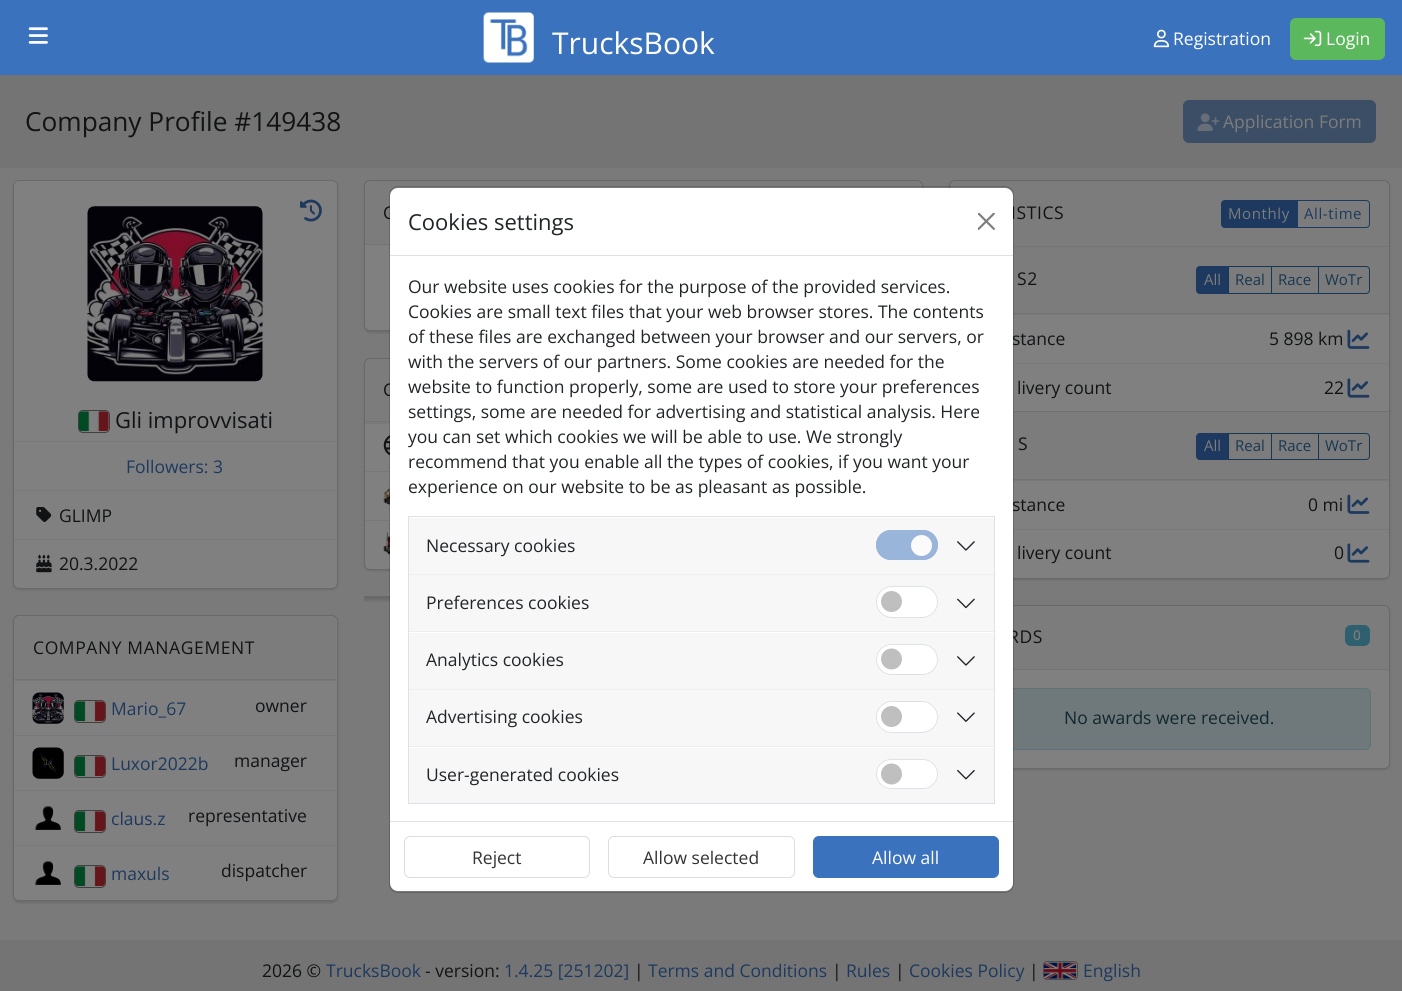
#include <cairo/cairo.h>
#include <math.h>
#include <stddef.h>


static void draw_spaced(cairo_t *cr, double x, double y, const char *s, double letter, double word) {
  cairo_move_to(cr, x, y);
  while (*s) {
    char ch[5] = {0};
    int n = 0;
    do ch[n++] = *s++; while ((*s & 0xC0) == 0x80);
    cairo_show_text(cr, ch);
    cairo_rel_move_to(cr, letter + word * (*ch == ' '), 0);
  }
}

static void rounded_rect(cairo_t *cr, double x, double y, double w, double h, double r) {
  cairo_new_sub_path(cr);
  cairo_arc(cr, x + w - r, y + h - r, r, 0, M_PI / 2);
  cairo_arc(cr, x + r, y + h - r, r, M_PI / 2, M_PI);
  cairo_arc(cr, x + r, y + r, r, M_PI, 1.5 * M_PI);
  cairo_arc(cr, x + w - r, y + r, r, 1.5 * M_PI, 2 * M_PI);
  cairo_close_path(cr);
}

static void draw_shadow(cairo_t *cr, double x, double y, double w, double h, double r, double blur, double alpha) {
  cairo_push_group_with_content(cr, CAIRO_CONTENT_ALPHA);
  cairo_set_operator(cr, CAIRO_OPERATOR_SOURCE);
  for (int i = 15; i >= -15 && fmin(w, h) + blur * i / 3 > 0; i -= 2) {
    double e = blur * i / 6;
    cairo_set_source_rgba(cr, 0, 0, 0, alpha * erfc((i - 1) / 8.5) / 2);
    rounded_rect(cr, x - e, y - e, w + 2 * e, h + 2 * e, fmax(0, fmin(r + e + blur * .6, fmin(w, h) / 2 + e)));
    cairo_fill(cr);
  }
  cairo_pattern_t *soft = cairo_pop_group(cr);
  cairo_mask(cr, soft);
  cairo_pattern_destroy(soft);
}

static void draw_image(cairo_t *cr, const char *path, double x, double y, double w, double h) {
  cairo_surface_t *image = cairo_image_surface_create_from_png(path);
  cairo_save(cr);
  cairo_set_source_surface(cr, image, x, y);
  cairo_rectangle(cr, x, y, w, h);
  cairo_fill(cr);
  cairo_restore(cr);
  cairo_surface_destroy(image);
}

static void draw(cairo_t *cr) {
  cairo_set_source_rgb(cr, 116 / 255.0, 116 / 255.0, 116 / 255.0);
  cairo_paint(cr);
  cairo_set_source_rgb(cr, 58 / 255.0, 114 / 255.0, 189 / 255.0);
  cairo_rectangle(cr, 0, 0, 1402, 75);
  cairo_fill(cr);
  draw_image(cr, "images/1.png", 28, 27, 20, 17);
  draw_image(cr, "images/2.png", 483, 12, 51, 51);
  draw_image(cr, "images/3.png", 1153, 29, 16, 19);
  cairo_set_source_rgb(cr, 92 / 255.0, 184 / 255.0, 92 / 255.0);
  rounded_rect(cr, 1290.5, 18.5, 94, 41, 5.5);
  cairo_fill_preserve(cr);
  cairo_set_line_width(cr, 1);
  cairo_stroke(cr);
  draw_image(cr, "images/4.png", 1303, 30, 19, 17);
  cairo_set_source_rgb(cr, 60 / 255.0, 78 / 255.0, 102 / 255.0);
  rounded_rect(cr, 1183.5, 100.5, 192, 42, 5.5);
  cairo_fill_preserve(cr);
  cairo_stroke(cr);
  draw_image(cr, "images/5.png", 1197, 113, 23, 18);
  cairo_set_source_rgb(cr, 122 / 255.0, 122 / 255.0, 122 / 255.0);
  cairo_rectangle(cr, 0, 168, 1402, 772);
  cairo_fill(cr);
  cairo_set_source_rgb(cr, 0, 0, 0);
  draw_shadow(cr, 13, 181, 325, 409, 6, 1, 0.12);
  cairo_set_source_rgb(cr, 128 / 255.0, 128 / 255.0, 128 / 255.0);
  rounded_rect(cr, 13, 180, 325, 409, 6);
  cairo_fill(cr);
  rounded_rect(cr, 13.5, 180.5, 324, 408, 5.5);
  cairo_set_source_rgba(cr, 0, 0, 0, 0.18);
  cairo_stroke(cr);
  draw_image(cr, "images/6.png", 300, 199, 22, 23);
  draw_image(cr, "images/7.png", 87, 206, 176, 176);
  rounded_rect(cr, 78.5, 410.5, 31, 22, 4.5);
  cairo_set_source_rgb(cr, 64 / 255.0, 64 / 255.0, 64 / 255.0);
  cairo_stroke(cr);
  draw_image(cr, "images/8.png", 78, 411, 31, 21);
  cairo_set_source_rgb(cr, 119 / 255.0, 122 / 255.0, 125 / 255.0);
  cairo_rectangle(cr, 14, 441, 322, 1);
  cairo_fill(cr);
  cairo_rectangle(cr, 14, 490, 322, 1);
  cairo_fill(cr);
  draw_image(cr, "images/9.png", 36, 507, 16, 15);
  cairo_rectangle(cr, 14, 539, 322, 1);
  cairo_fill(cr);
  draw_image(cr, "images/10.png", 36, 554, 16, 19);
  cairo_set_source_rgb(cr, 0, 0, 0);
  draw_shadow(cr, 13, 616, 325, 287, 6, 1, 0.12);
  cairo_set_source_rgb(cr, 128 / 255.0, 128 / 255.0, 128 / 255.0);
  rounded_rect(cr, 13, 615, 325, 286, 6);
  cairo_fill(cr);
  rounded_rect(cr, 13.5, 615.5, 324, 285, 5.5);
  cairo_set_source_rgba(cr, 0, 0, 0, 0.18);
  cairo_stroke(cr);
  cairo_set_source_rgba(cr, 17 / 255.0, 19 / 255.0, 21 / 255.0, 0.03);
  cairo_rectangle(cr, 14, 616, 322, 63);
  cairo_fill(cr);
  cairo_set_source_rgb(cr, 115 / 255.0, 115 / 255.0, 115 / 255.0);
  cairo_rectangle(cr, 14, 679, 322, 1);
  cairo_fill(cr);
  cairo_set_source_rgb(cr, 119 / 255.0, 122 / 255.0, 125 / 255.0);
  cairo_rectangle(cr, 14, 680, 322, 1);
  cairo_fill(cr);
  draw_image(cr, "images/11.png", 32, 692, 32, 32);
  rounded_rect(cr, 74.5, 700.5, 31, 22, 4.5);
  cairo_set_source_rgb(cr, 64 / 255.0, 64 / 255.0, 64 / 255.0);
  cairo_stroke(cr);
  draw_image(cr, "images/12.png", 75, 701, 30, 21);
  cairo_set_source_rgb(cr, 119 / 255.0, 122 / 255.0, 125 / 255.0);
  cairo_rectangle(cr, 14, 735, 322, 1);
  cairo_fill(cr);
  draw_image(cr, "images/13.png", 32, 747, 32, 32);
  rounded_rect(cr, 74.5, 755.5, 31, 22, 4.5);
  cairo_set_source_rgb(cr, 64 / 255.0, 64 / 255.0, 64 / 255.0);
  cairo_stroke(cr);
  draw_image(cr, "images/12.png", 75, 756, 30, 21);
  cairo_set_source_rgb(cr, 119 / 255.0, 122 / 255.0, 125 / 255.0);
  cairo_rectangle(cr, 14, 790, 322, 1);
  cairo_fill(cr);
  draw_image(cr, "images/14.png", 35, 806, 26, 24);
  rounded_rect(cr, 74.5, 810.5, 31, 22, 4.5);
  cairo_set_source_rgb(cr, 64 / 255.0, 64 / 255.0, 64 / 255.0);
  cairo_stroke(cr);
  draw_image(cr, "images/12.png", 75, 811, 30, 21);
  cairo_set_source_rgb(cr, 119 / 255.0, 122 / 255.0, 125 / 255.0);
  cairo_rectangle(cr, 14, 845, 322, 1);
  cairo_fill(cr);
  draw_image(cr, "images/14.png", 35, 861, 26, 24);
  rounded_rect(cr, 74.5, 865.5, 31, 22, 4.5);
  cairo_set_source_rgb(cr, 64 / 255.0, 64 / 255.0, 64 / 255.0);
  cairo_stroke(cr);
  draw_image(cr, "images/12.png", 75, 866, 30, 21);
  cairo_set_source_rgb(cr, 0, 0, 0);
  draw_shadow(cr, 364, 181, 559, 152, 6, 1, 0.12);
  cairo_set_source_rgb(cr, 128 / 255.0, 128 / 255.0, 128 / 255.0);
  rounded_rect(cr, 364, 180, 559, 151, 6);
  cairo_fill(cr);
  rounded_rect(cr, 364.5, 180.5, 558, 150, 5.5);
  cairo_set_source_rgba(cr, 0, 0, 0, 0.18);
  cairo_stroke(cr);
  cairo_set_source_rgba(cr, 17 / 255.0, 19 / 255.0, 21 / 255.0, 0.03);
  cairo_rectangle(cr, 365, 181, 556, 63);
  cairo_fill(cr);
  cairo_set_source_rgb(cr, 115 / 255.0, 115 / 255.0, 115 / 255.0);
  cairo_rectangle(cr, 365, 244, 25, 1);
  cairo_fill(cr);
  cairo_set_source_rgb(cr, 0, 0, 0);
  draw_shadow(cr, 364, 359, 559, 212, 6, 1, 0.12);
  cairo_set_source_rgb(cr, 128 / 255.0, 128 / 255.0, 128 / 255.0);
  rounded_rect(cr, 364, 358, 559, 212, 6);
  cairo_fill(cr);
  rounded_rect(cr, 364.5, 358.5, 558, 211, 5.5);
  cairo_set_source_rgba(cr, 0, 0, 0, 0.18);
  cairo_stroke(cr);
  cairo_set_source_rgba(cr, 17 / 255.0, 19 / 255.0, 21 / 255.0, 0.03);
  cairo_rectangle(cr, 365, 359, 25, 64);
  cairo_fill(cr);
  cairo_set_source_rgb(cr, 115 / 255.0, 115 / 255.0, 115 / 255.0);
  cairo_rectangle(cr, 365, 421, 25, 1);
  cairo_fill(cr);
  cairo_set_source_rgb(cr, 119 / 255.0, 122 / 255.0, 125 / 255.0);
  cairo_rectangle(cr, 365, 423, 25, 1);
  cairo_fill(cr);
  draw_image(cr, "images/15.png", 383, 435, 7, 21);
  cairo_rectangle(cr, 365, 471, 25, 1);
  cairo_fill(cr);
  draw_image(cr, "images/16.png", 383, 486, 7, 20);
  cairo_rectangle(cr, 365, 520, 25, 1);
  cairo_fill(cr);
  draw_image(cr, "images/17.png", 383, 532, 7, 23);
  cairo_set_source_rgb(cr, 0, 0, 0);
  draw_shadow(cr, 364, 598, 559, 3, 1.5, 1, 0.12);
  cairo_set_source_rgb(cr, 128 / 255.0, 128 / 255.0, 128 / 255.0);
  rounded_rect(cr, 364, 596, 559, 3, 1.5);
  cairo_fill(cr);
  cairo_set_source_rgba(cr, 0, 0, 0, 0.18);
  rounded_rect(cr, 364, 596, 559, 3, 1.5);
  cairo_fill(cr);
  cairo_set_source_rgb(cr, 0, 0, 0);
  draw_shadow(cr, 949, 181, 441, 399, 6, 1, 0.12);
  cairo_set_source_rgb(cr, 128 / 255.0, 128 / 255.0, 128 / 255.0);
  rounded_rect(cr, 949, 180, 441, 399, 6);
  cairo_fill(cr);
  rounded_rect(cr, 949.5, 180.5, 440, 398, 5.5);
  cairo_set_source_rgba(cr, 0, 0, 0, 0.18);
  cairo_stroke(cr);
  cairo_set_source_rgba(cr, 17 / 255.0, 19 / 255.0, 21 / 255.0, 0.03);
  cairo_rectangle(cr, 950, 181, 439, 67);
  cairo_fill(cr);
  cairo_set_source_rgb(cr, 115 / 255.0, 115 / 255.0, 115 / 255.0);
  cairo_rectangle(cr, 1013, 246, 376, 1);
  cairo_fill(cr);
  cairo_new_path(cr);
  cairo_move_to(cr, 1296.5, 200.5);
  cairo_line_to(cr, 1366, 200.5);
  cairo_curve_to(cr, 1368, 200.5, 1369.5, 202, 1369.5, 204);
  cairo_line_to(cr, 1369.5, 224);
  cairo_curve_to(cr, 1369.5, 226, 1368, 227.5, 1366, 227.5);
  cairo_line_to(cr, 1296.5, 227.5);
  cairo_close_path(cr);
  cairo_set_source_rgb(cr, 29 / 255.0, 57 / 255.0, 95 / 255.0);
  cairo_stroke(cr);
  cairo_new_path(cr);
  cairo_move_to(cr, 1225, 200.5);
  cairo_line_to(cr, 1297.5, 200.5);
  cairo_line_to(cr, 1297.5, 227.5);
  cairo_line_to(cr, 1225, 227.5);
  cairo_curve_to(cr, 1223, 227.5, 1221.5, 226, 1221.5, 224);
  cairo_line_to(cr, 1221.5, 204);
  cairo_curve_to(cr, 1221.5, 202, 1223, 200.5, 1225, 200.5);
  cairo_close_path(cr);
  cairo_fill_preserve(cr);
  cairo_stroke(cr);
  cairo_set_source_rgb(cr, 124 / 255.0, 124 / 255.0, 125 / 255.0);
  cairo_rectangle(cr, 1013, 248, 376, 65);
  cairo_fill(cr);
  cairo_set_source_rgb(cr, 115 / 255.0, 115 / 255.0, 115 / 255.0);
  cairo_rectangle(cr, 1013, 313, 376, 1);
  cairo_fill(cr);
  cairo_set_source_rgb(cr, 29 / 255.0, 57 / 255.0, 95 / 255.0);
  cairo_new_path(cr);
  cairo_move_to(cr, 1200, 266.5);
  cairo_line_to(cr, 1228.5, 266.5);
  cairo_line_to(cr, 1228.5, 293.5);
  cairo_line_to(cr, 1200, 293.5);
  cairo_curve_to(cr, 1198, 293.5, 1196.5, 292, 1196.5, 290);
  cairo_line_to(cr, 1196.5, 270);
  cairo_curve_to(cr, 1196.5, 268, 1198, 266.5, 1200, 266.5);
  cairo_close_path(cr);
  cairo_fill_preserve(cr);
  cairo_stroke(cr);
  cairo_rectangle(cr, 1228.5, 266.5, 44, 27);
  cairo_set_source_rgb(cr, 23 / 255.0, 55 / 255.0, 82 / 255.0);
  cairo_stroke(cr);
  cairo_set_source_rgb(cr, 123 / 255.0, 123 / 255.0, 123 / 255.0);
  cairo_rectangle(cr, 1272, 267, 1, 26);
  cairo_fill(cr);
  cairo_rectangle(cr, 1271.5, 266.5, 47, 27);
  cairo_set_source_rgb(cr, 23 / 255.0, 55 / 255.0, 82 / 255.0);
  cairo_stroke(cr);
  cairo_set_source_rgb(cr, 123 / 255.0, 123 / 255.0, 123 / 255.0);
  cairo_new_path(cr);
  cairo_move_to(cr, 1318.5, 266.5);
  cairo_line_to(cr, 1366, 266.5);
  cairo_curve_to(cr, 1368, 266.5, 1369.5, 268, 1369.5, 270);
  cairo_line_to(cr, 1369.5, 290);
  cairo_curve_to(cr, 1369.5, 292, 1368, 293.5, 1366, 293.5);
  cairo_line_to(cr, 1318.5, 293.5);
  cairo_close_path(cr);
  cairo_fill_preserve(cr);
  cairo_set_source_rgb(cr, 23 / 255.0, 55 / 255.0, 82 / 255.0);
  cairo_stroke(cr);
  cairo_set_source_rgb(cr, 119 / 255.0, 122 / 255.0, 125 / 255.0);
  cairo_rectangle(cr, 1013, 314, 376, 1);
  cairo_fill(cr);
  draw_image(cr, "images/18.png", 1347, 329, 23, 20);
  cairo_rectangle(cr, 1013, 363, 376, 1);
  cairo_fill(cr);
  draw_image(cr, "images/19.png", 1347, 378, 23, 20);
  cairo_set_source_rgb(cr, 124 / 255.0, 124 / 255.0, 125 / 255.0);
  cairo_rectangle(cr, 1013, 412, 376, 67);
  cairo_fill(cr);
  cairo_set_source_rgb(cr, 111 / 255.0, 113 / 255.0, 115 / 255.0);
  cairo_rectangle(cr, 1013, 411, 376, 1);
  cairo_fill(cr);
  cairo_set_source_rgb(cr, 115 / 255.0, 115 / 255.0, 115 / 255.0);
  cairo_rectangle(cr, 1013, 479, 376, 1);
  cairo_fill(cr);
  cairo_set_source_rgb(cr, 29 / 255.0, 57 / 255.0, 95 / 255.0);
  cairo_new_path(cr);
  cairo_move_to(cr, 1200, 433.5);
  cairo_line_to(cr, 1228.5, 433.5);
  cairo_line_to(cr, 1228.5, 459.5);
  cairo_line_to(cr, 1200, 459.5);
  cairo_curve_to(cr, 1198, 459.5, 1196.5, 458, 1196.5, 456);
  cairo_line_to(cr, 1196.5, 437);
  cairo_curve_to(cr, 1196.5, 435, 1198, 433.5, 1200, 433.5);
  cairo_close_path(cr);
  cairo_fill_preserve(cr);
  cairo_stroke(cr);
  cairo_rectangle(cr, 1228.5, 433.5, 44, 26);
  cairo_set_source_rgb(cr, 23 / 255.0, 55 / 255.0, 82 / 255.0);
  cairo_stroke(cr);
  cairo_set_source_rgb(cr, 123 / 255.0, 123 / 255.0, 123 / 255.0);
  cairo_rectangle(cr, 1272, 434, 1, 25);
  cairo_fill(cr);
  cairo_rectangle(cr, 1271.5, 433.5, 47, 26);
  cairo_set_source_rgb(cr, 23 / 255.0, 55 / 255.0, 82 / 255.0);
  cairo_stroke(cr);
  cairo_set_source_rgb(cr, 123 / 255.0, 123 / 255.0, 123 / 255.0);
  cairo_new_path(cr);
  cairo_move_to(cr, 1318.5, 433.5);
  cairo_line_to(cr, 1366, 433.5);
  cairo_curve_to(cr, 1368, 433.5, 1369.5, 435, 1369.5, 437);
  cairo_line_to(cr, 1369.5, 456);
  cairo_curve_to(cr, 1369.5, 458, 1368, 459.5, 1366, 459.5);
  cairo_line_to(cr, 1318.5, 459.5);
  cairo_close_path(cr);
  cairo_fill_preserve(cr);
  cairo_set_source_rgb(cr, 23 / 255.0, 55 / 255.0, 82 / 255.0);
  cairo_stroke(cr);
  cairo_set_source_rgb(cr, 119 / 255.0, 122 / 255.0, 125 / 255.0);
  cairo_rectangle(cr, 1013, 480, 376, 1);
  cairo_fill(cr);
  draw_image(cr, "images/18.png", 1347, 494, 23, 20);
  cairo_rectangle(cr, 1013, 529, 376, 1);
  cairo_fill(cr);
  draw_image(cr, "images/19.png", 1347, 543, 23, 20);
  cairo_set_source_rgb(cr, 0, 0, 0);
  draw_shadow(cr, 949, 606, 441, 164, 6, 1, 0.12);
  cairo_set_source_rgb(cr, 128 / 255.0, 128 / 255.0, 128 / 255.0);
  rounded_rect(cr, 949, 605, 441, 164, 6);
  cairo_fill(cr);
  rounded_rect(cr, 949.5, 605.5, 440, 163, 5.5);
  cairo_set_source_rgba(cr, 0, 0, 0, 0.18);
  cairo_stroke(cr);
  cairo_set_source_rgba(cr, 17 / 255.0, 19 / 255.0, 21 / 255.0, 0.03);
  cairo_rectangle(cr, 1013, 606, 376, 63);
  cairo_fill(cr);
  cairo_set_source_rgb(cr, 115 / 255.0, 115 / 255.0, 115 / 255.0);
  cairo_rectangle(cr, 1013, 669, 376, 1);
  cairo_fill(cr);
  cairo_set_source_rgb(cr, 46 / 255.0, 96 / 255.0, 111 / 255.0);
  rounded_rect(cr, 1345, 625, 25, 21, 6);
  cairo_fill(cr);
  cairo_set_source_rgb(cr, 111 / 255.0, 121 / 255.0, 124 / 255.0);
  rounded_rect(cr, 968.5, 688.5, 402, 61, 5.5);
  cairo_fill_preserve(cr);
  cairo_set_source_rgb(cr, 95 / 255.0, 115 / 255.0, 121 / 255.0);
  cairo_stroke(cr);
  rounded_rect(cr, 1043.5, 961.5, 34, 18, 3.5);
  cairo_set_source_rgb(cr, 77 / 255.0, 77 / 255.0, 77 / 255.0);
  cairo_stroke(cr);
  draw_image(cr, "images/20.png", 1043, 962, 34, 17);
  cairo_select_font_face(cr, "Open Sans", CAIRO_FONT_SLANT_NORMAL, CAIRO_FONT_WEIGHT_NORMAL);
  cairo_set_font_size(cr, 30);
  cairo_set_source_rgb(cr, 1, 1, 1);
  cairo_move_to(cr, 552, 54);
  cairo_show_text(cr, "TrucksBook");
  cairo_set_font_size(cr, 17.5);
  cairo_move_to(cr, 1173, 45);
  cairo_show_text(cr, "Registration");
  cairo_move_to(cr, 1326, 45);
  cairo_show_text(cr, "Login");
  cairo_set_font_size(cr, 26.25);
  cairo_set_source_rgb(cr, 17 / 255.0, 19 / 255.0, 21 / 255.0);
  cairo_move_to(cr, 25, 131);
  cairo_show_text(cr, "Company Profile #149438");
  cairo_set_font_size(cr, 17.5);
  cairo_set_source_rgb(cr, 124 / 255.0, 124 / 255.0, 124 / 255.0);
  cairo_move_to(cr, 1223, 128);
  cairo_show_text(cr, "Application Form");
  cairo_set_font_size(cr, 22);
  cairo_set_source_rgb(cr, 17 / 255.0, 19 / 255.0, 21 / 255.0);
  cairo_move_to(cr, 115, 428);
  cairo_show_text(cr, "Gli improvvisati");
  cairo_set_font_size(cr, 17.5);
  cairo_set_source_rgb(cr, 29 / 255.0, 57 / 255.0, 95 / 255.0);
  cairo_move_to(cr, 126, 473);
  cairo_show_text(cr, "Followers: 3");
  cairo_set_source_rgb(cr, 17 / 255.0, 19 / 255.0, 21 / 255.0);
  cairo_move_to(cr, 59, 522);
  cairo_show_text(cr, "GLIMP");
  cairo_move_to(cr, 59, 570);
  cairo_show_text(cr, "20.3.2022");
  draw_spaced(cr, 33, 654, "COMPANY MANAGEMENT", 0.6, 0);
  cairo_set_source_rgb(cr, 29 / 255.0, 57 / 255.0, 95 / 255.0);
  cairo_move_to(cr, 111, 715);
  cairo_show_text(cr, "Mario_67");
  cairo_set_source_rgb(cr, 17 / 255.0, 19 / 255.0, 21 / 255.0);
  cairo_move_to(cr, 255, 712);
  cairo_show_text(cr, "owner");
  cairo_set_source_rgb(cr, 29 / 255.0, 57 / 255.0, 95 / 255.0);
  cairo_move_to(cr, 111, 770);
  cairo_show_text(cr, "Luxor2022b");
  cairo_set_source_rgb(cr, 17 / 255.0, 19 / 255.0, 21 / 255.0);
  cairo_move_to(cr, 234, 767);
  cairo_show_text(cr, "manager");
  cairo_set_source_rgb(cr, 29 / 255.0, 57 / 255.0, 95 / 255.0);
  cairo_move_to(cr, 111, 825);
  cairo_show_text(cr, "claus.z");
  cairo_set_source_rgb(cr, 17 / 255.0, 19 / 255.0, 21 / 255.0);
  cairo_move_to(cr, 188, 822);
  cairo_show_text(cr, "representative");
  cairo_set_source_rgb(cr, 29 / 255.0, 57 / 255.0, 95 / 255.0);
  cairo_move_to(cr, 111, 880);
  cairo_show_text(cr, "maxuls");
  cairo_set_source_rgb(cr, 17 / 255.0, 19 / 255.0, 21 / 255.0);
  cairo_move_to(cr, 221, 877);
  cairo_show_text(cr, "dispatcher");
  draw_spaced(cr, 383, 219, "C", 0.6, 0);
  draw_spaced(cr, 383, 396, "C", 0.6, 0);
  draw_spaced(cr, 1011, 219, "ISTICS", 0.6, 0);
  cairo_set_font_size(cr, 15);
  cairo_set_source_rgb(cr, 124 / 255.0, 124 / 255.0, 124 / 255.0);
  draw_spaced(cr, 1228, 219, "Monthly", 0.6, 0);
  cairo_set_source_rgb(cr, 29 / 255.0, 57 / 255.0, 95 / 255.0);
  draw_spaced(cr, 1304, 219, "All-time", 0.6, 0);
  cairo_set_font_size(cr, 17.5);
  cairo_set_source_rgb(cr, 17 / 255.0, 19 / 255.0, 21 / 255.0);
  draw_spaced(cr, 1017, 285, "S2", 0.6, 0);
  cairo_set_font_size(cr, 15);
  cairo_set_source_rgb(cr, 124 / 255.0, 124 / 255.0, 124 / 255.0);
  cairo_move_to(cr, 1204, 285);
  cairo_show_text(cr, "All");
  cairo_set_source_rgb(cr, 23 / 255.0, 55 / 255.0, 82 / 255.0);
  cairo_move_to(cr, 1235, 285);
  cairo_show_text(cr, "Real");
  cairo_move_to(cr, 1278, 285);
  cairo_show_text(cr, "Race");
  cairo_move_to(cr, 1325, 285);
  cairo_show_text(cr, "WoTr");
  cairo_set_font_size(cr, 17.5);
  cairo_set_source_rgb(cr, 17 / 255.0, 19 / 255.0, 21 / 255.0);
  cairo_move_to(cr, 1012, 345);
  cairo_show_text(cr, "stance");
  cairo_move_to(cr, 1269, 345);
  cairo_show_text(cr, "5 898 km");
  cairo_move_to(cr, 1017, 394);
  cairo_show_text(cr, "livery count");
  cairo_move_to(cr, 1324, 394);
  cairo_show_text(cr, "22");
  draw_spaced(cr, 1018, 450, "S", 0.6, 0);
  cairo_set_font_size(cr, 15);
  cairo_set_source_rgb(cr, 124 / 255.0, 124 / 255.0, 124 / 255.0);
  cairo_move_to(cr, 1204, 451);
  cairo_show_text(cr, "All");
  cairo_set_source_rgb(cr, 23 / 255.0, 55 / 255.0, 82 / 255.0);
  cairo_move_to(cr, 1235, 451);
  cairo_show_text(cr, "Real");
  cairo_move_to(cr, 1278, 451);
  cairo_show_text(cr, "Race");
  cairo_move_to(cr, 1325, 451);
  cairo_show_text(cr, "WoTr");
  cairo_set_font_size(cr, 17.5);
  cairo_set_source_rgb(cr, 17 / 255.0, 19 / 255.0, 21 / 255.0);
  cairo_move_to(cr, 1012, 511);
  cairo_show_text(cr, "stance");
  cairo_move_to(cr, 1308, 511);
  cairo_show_text(cr, "0 mi");
  cairo_move_to(cr, 1017, 559);
  cairo_show_text(cr, "livery count");
  cairo_move_to(cr, 1334, 559);
  cairo_show_text(cr, "0");
  draw_spaced(cr, 1008, 643, "RDS", 0.6, 0);
  cairo_select_font_face(cr, "Open Sans", CAIRO_FONT_SLANT_NORMAL, CAIRO_FONT_WEIGHT_BOLD);
  cairo_set_font_size(cr, 13);
  cairo_set_source_rgb(cr, 124 / 255.0, 124 / 255.0, 124 / 255.0);
  draw_spaced(cr, 1353, 640, "0", 0.6, 0);
  cairo_select_font_face(cr, "Open Sans", CAIRO_FONT_SLANT_NORMAL, CAIRO_FONT_WEIGHT_NORMAL);
  cairo_set_font_size(cr, 17.5);
  cairo_set_source_rgb(cr, 18 / 255.0, 39 / 255.0, 45 / 255.0);
  cairo_move_to(cr, 1064, 724);
  cairo_show_text(cr, "No awards were received.");
  cairo_set_source_rgb(cr, 17 / 255.0, 19 / 255.0, 21 / 255.0);
  cairo_move_to(cr, 262, 977);
  cairo_show_text(cr, "2026 ©");
  cairo_set_source_rgb(cr, 29 / 255.0, 57 / 255.0, 95 / 255.0);
  cairo_move_to(cr, 326, 977);
  cairo_show_text(cr, "TrucksBook");
  cairo_set_source_rgb(cr, 17 / 255.0, 19 / 255.0, 21 / 255.0);
  cairo_move_to(cr, 425, 977);
  cairo_show_text(cr, "- version:");
  cairo_set_source_rgb(cr, 29 / 255.0, 57 / 255.0, 95 / 255.0);
  cairo_move_to(cr, 504, 977);
  cairo_show_text(cr, "1.4.25 [251202]");
  cairo_set_source_rgb(cr, 17 / 255.0, 19 / 255.0, 21 / 255.0);
  cairo_move_to(cr, 634, 977);
  cairo_show_text(cr, "|");
  cairo_set_source_rgb(cr, 29 / 255.0, 57 / 255.0, 95 / 255.0);
  cairo_move_to(cr, 648, 977);
  cairo_show_text(cr, "Terms and Conditions");
  cairo_set_source_rgb(cr, 17 / 255.0, 19 / 255.0, 21 / 255.0);
  cairo_move_to(cr, 832, 977);
  cairo_show_text(cr, "|");
  cairo_set_source_rgb(cr, 29 / 255.0, 57 / 255.0, 95 / 255.0);
  cairo_move_to(cr, 846, 977);
  cairo_show_text(cr, "Rules");
  cairo_set_source_rgb(cr, 17 / 255.0, 19 / 255.0, 21 / 255.0);
  cairo_move_to(cr, 895, 977);
  cairo_show_text(cr, "|");
  cairo_set_source_rgb(cr, 29 / 255.0, 57 / 255.0, 95 / 255.0);
  cairo_move_to(cr, 909, 977);
  cairo_show_text(cr, "Cookies Policy");
  cairo_set_source_rgb(cr, 17 / 255.0, 19 / 255.0, 21 / 255.0);
  cairo_move_to(cr, 1029, 977);
  cairo_show_text(cr, "|");
  cairo_set_source_rgb(cr, 29 / 255.0, 57 / 255.0, 95 / 255.0);
  cairo_move_to(cr, 1083, 977);
  cairo_show_text(cr, "English");
  cairo_set_source_rgb(cr, 1, 1, 1);
  rounded_rect(cr, 390, 188, 623, 703, 8);
  cairo_fill(cr);
  rounded_rect(cr, 389.5, 186.5, 624, 706, 8.5);
  cairo_set_source_rgba(cr, 0, 0, 0, 0.18);
  cairo_stroke(cr);
  cairo_set_source_rgb(cr, 222 / 255.0, 226 / 255.0, 230 / 255.0);
  cairo_rectangle(cr, 390, 255, 623, 1);
  cairo_fill(cr);
  cairo_set_font_size(cr, 22);
  cairo_set_source_rgb(cr, 33 / 255.0, 37 / 255.0, 41 / 255.0);
  cairo_move_to(cr, 408, 230);
  cairo_show_text(cr, "Cookies settings");
  draw_image(cr, "images/21.png", 978, 213, 17, 17);
  cairo_set_font_size(cr, 17.5);
  cairo_move_to(cr, 408, 293);
  cairo_show_text(cr, "Our website uses cookies for the purpose of the provided services.");
  cairo_move_to(cr, 408, 318);
  cairo_show_text(cr, "Cookies are small text files that your web browser stores. The contents");
  cairo_move_to(cr, 408, 343);
  cairo_show_text(cr, "of these files are exchanged between your browser and our servers, or");
  cairo_move_to(cr, 408, 368);
  cairo_show_text(cr, "with the servers of our partners. Some cookies are needed for the");
  cairo_move_to(cr, 408, 393);
  cairo_show_text(cr, "website to function properly, some are used to store your preferences");
  cairo_move_to(cr, 408, 418);
  cairo_show_text(cr, "settings, some are needed for advertising and statistical analysis. Here");
  cairo_move_to(cr, 408, 443);
  cairo_show_text(cr, "you can set which cookies we will be able to use. We strongly");
  cairo_move_to(cr, 408, 468);
  cairo_show_text(cr, "recommend that you enable all the types of cookies, if you want your");
  cairo_move_to(cr, 408, 493);
  cairo_show_text(cr, "experience on our website to be as pleasant as possible.");
  cairo_rectangle(cr, 408.5, 516.5, 586, 287);
  cairo_set_source_rgb(cr, 222 / 255.0, 226 / 255.0, 230 / 255.0);
  cairo_stroke(cr);
  cairo_set_source_rgb(cr, 238 / 255.0, 238 / 255.0, 238 / 255.0);
  cairo_rectangle(cr, 409, 574, 585, 1);
  cairo_fill(cr);
  cairo_set_source_rgb(cr, 247 / 255.0, 247 / 255.0, 247 / 255.0);
  cairo_rectangle(cr, 409, 518, 585, 56);
  cairo_fill(cr);
  cairo_set_source_rgb(cr, 33 / 255.0, 37 / 255.0, 41 / 255.0);
  cairo_move_to(cr, 426, 552);
  cairo_show_text(cr, "Necessary cookies");
  cairo_set_source_rgb(cr, 153 / 255.0, 181 / 255.0, 218 / 255.0);
  rounded_rect(cr, 876, 530, 62, 30, 15);
  cairo_fill(cr);
  cairo_set_source_rgb(cr, 251 / 255.0, 251 / 255.0, 251 / 255.0);
  cairo_arc(cr, 921.5, 545.5, 10.5, 0, 2 * M_PI);
  cairo_fill(cr);
  rounded_rect(cr, 876.5, 530.5, 61, 29, 14.5);
  cairo_set_source_rgb(cr, 153 / 255.0, 181 / 255.0, 218 / 255.0);
  cairo_stroke(cr);
  draw_image(cr, "images/22.png", 957, 541, 18, 10);
  cairo_set_source_rgb(cr, 238 / 255.0, 238 / 255.0, 238 / 255.0);
  cairo_rectangle(cr, 409, 631, 585, 1);
  cairo_fill(cr);
  cairo_set_source_rgb(cr, 247 / 255.0, 247 / 255.0, 247 / 255.0);
  cairo_rectangle(cr, 409, 575, 585, 56);
  cairo_fill(cr);
  cairo_set_source_rgb(cr, 33 / 255.0, 37 / 255.0, 41 / 255.0);
  cairo_move_to(cr, 426, 609);
  cairo_show_text(cr, "Preferences cookies");
  cairo_set_source_rgb(cr, 1, 1, 1);
  rounded_rect(cr, 876, 586, 62, 32, 16);
  cairo_fill(cr);
  cairo_set_source_rgb(cr, 191 / 255.0, 191 / 255.0, 191 / 255.0);
  cairo_arc(cr, 891.5, 601.5, 10.5, 0, 2 * M_PI);
  cairo_fill(cr);
  rounded_rect(cr, 876.5, 586.5, 61, 31, 15.5);
  cairo_set_source_rgb(cr, 222 / 255.0, 226 / 255.0, 230 / 255.0);
  cairo_stroke(cr);
  draw_image(cr, "images/23.png", 957, 598, 18, 11);
  cairo_set_source_rgb(cr, 238 / 255.0, 238 / 255.0, 238 / 255.0);
  cairo_rectangle(cr, 409, 689, 585, 1);
  cairo_fill(cr);
  cairo_set_source_rgb(cr, 247 / 255.0, 247 / 255.0, 247 / 255.0);
  cairo_rectangle(cr, 409, 633, 585, 56);
  cairo_fill(cr);
  cairo_set_source_rgb(cr, 33 / 255.0, 37 / 255.0, 41 / 255.0);
  cairo_move_to(cr, 426, 666);
  cairo_show_text(cr, "Analytics cookies");
  cairo_set_source_rgb(cr, 1, 1, 1);
  rounded_rect(cr, 876, 644, 62, 31, 15.5);
  cairo_fill(cr);
  cairo_set_source_rgb(cr, 191 / 255.0, 191 / 255.0, 191 / 255.0);
  cairo_arc(cr, 891.5, 659, 10.5, 0, 2 * M_PI);
  cairo_fill(cr);
  rounded_rect(cr, 876.5, 644.5, 61, 30, 15);
  cairo_set_source_rgb(cr, 222 / 255.0, 226 / 255.0, 230 / 255.0);
  cairo_stroke(cr);
  draw_image(cr, "images/22.png", 957, 656, 18, 10);
  cairo_set_source_rgb(cr, 238 / 255.0, 238 / 255.0, 238 / 255.0);
  cairo_rectangle(cr, 409, 746, 585, 1);
  cairo_fill(cr);
  cairo_set_source_rgb(cr, 247 / 255.0, 247 / 255.0, 247 / 255.0);
  cairo_rectangle(cr, 409, 690, 585, 56);
  cairo_fill(cr);
  cairo_set_source_rgb(cr, 33 / 255.0, 37 / 255.0, 41 / 255.0);
  cairo_move_to(cr, 426, 723);
  cairo_show_text(cr, "Advertising cookies");
  cairo_set_source_rgb(cr, 1, 1, 1);
  rounded_rect(cr, 876, 701, 62, 32, 16);
  cairo_fill(cr);
  cairo_set_source_rgb(cr, 191 / 255.0, 191 / 255.0, 191 / 255.0);
  cairo_arc(cr, 891.5, 716.5, 10.5, 0, 2 * M_PI);
  cairo_fill(cr);
  rounded_rect(cr, 876.5, 701.5, 61, 31, 15.5);
  cairo_set_source_rgb(cr, 222 / 255.0, 226 / 255.0, 230 / 255.0);
  cairo_stroke(cr);
  draw_image(cr, "images/24.png", 957, 712, 18, 10);
  cairo_set_source_rgb(cr, 247 / 255.0, 247 / 255.0, 247 / 255.0);
  cairo_rectangle(cr, 409, 748, 585, 55);
  cairo_fill(cr);
  cairo_set_source_rgb(cr, 33 / 255.0, 37 / 255.0, 41 / 255.0);
  cairo_move_to(cr, 426, 781);
  cairo_show_text(cr, "User-generated cookies");
  cairo_set_source_rgb(cr, 1, 1, 1);
  rounded_rect(cr, 876, 759, 62, 30, 15);
  cairo_fill(cr);
  cairo_set_source_rgb(cr, 191 / 255.0, 191 / 255.0, 191 / 255.0);
  cairo_arc(cr, 891.5, 774, 10.5, 0, 2 * M_PI);
  cairo_fill(cr);
  rounded_rect(cr, 876.5, 759.5, 61, 29, 14.5);
  cairo_set_source_rgb(cr, 222 / 255.0, 226 / 255.0, 230 / 255.0);
  cairo_stroke(cr);
  draw_image(cr, "images/25.png", 957, 770, 18, 10);
  cairo_rectangle(cr, 390, 821, 623, 1);
  cairo_fill(cr);
  rounded_rect(cr, 404.5, 836.5, 185, 41, 5.5);
  cairo_set_source_rgb(cr, 221 / 255.0, 221 / 255.0, 221 / 255.0);
  cairo_stroke(cr);
  cairo_set_source_rgb(cr, 51 / 255.0, 51 / 255.0, 51 / 255.0);
  cairo_move_to(cr, 472, 864);
  cairo_show_text(cr, "Reject");
  rounded_rect(cr, 608.5, 836.5, 186, 41, 5.5);
  cairo_set_source_rgb(cr, 221 / 255.0, 221 / 255.0, 221 / 255.0);
  cairo_stroke(cr);
  cairo_set_source_rgb(cr, 51 / 255.0, 51 / 255.0, 51 / 255.0);
  cairo_move_to(cr, 643, 864);
  cairo_show_text(cr, "Allow selected");
  cairo_set_source_rgb(cr, 58 / 255.0, 114 / 255.0, 189 / 255.0);
  rounded_rect(cr, 813.5, 836.5, 185, 41, 5.5);
  cairo_fill_preserve(cr);
  cairo_stroke(cr);
  cairo_set_source_rgb(cr, 1, 1, 1);
  cairo_move_to(cr, 872, 864);
  cairo_show_text(cr, "Allow all");
}

int main(void) {
  cairo_surface_t *surface = cairo_image_surface_create(CAIRO_FORMAT_RGB24, 1402, 991);
  cairo_t *cr = cairo_create(surface);
  cairo_font_options_t *options = cairo_font_options_create();
  cairo_font_options_set_hint_metrics(options, CAIRO_HINT_METRICS_OFF);
  cairo_font_options_set_hint_style(options, CAIRO_HINT_STYLE_NONE);
  cairo_set_font_options(cr, options);
  cairo_set_miter_limit(cr, 4);
  draw(cr);
  cairo_surface_write_to_png(surface, "out.png");
  cairo_font_options_destroy(options);
  cairo_destroy(cr);
  cairo_surface_destroy(surface);
  return 0;
}
